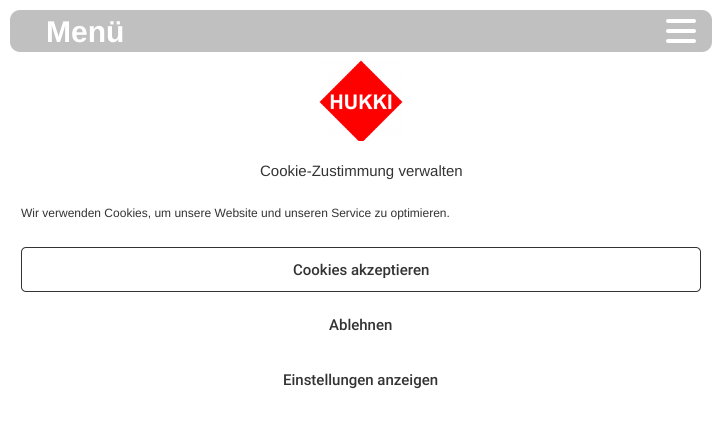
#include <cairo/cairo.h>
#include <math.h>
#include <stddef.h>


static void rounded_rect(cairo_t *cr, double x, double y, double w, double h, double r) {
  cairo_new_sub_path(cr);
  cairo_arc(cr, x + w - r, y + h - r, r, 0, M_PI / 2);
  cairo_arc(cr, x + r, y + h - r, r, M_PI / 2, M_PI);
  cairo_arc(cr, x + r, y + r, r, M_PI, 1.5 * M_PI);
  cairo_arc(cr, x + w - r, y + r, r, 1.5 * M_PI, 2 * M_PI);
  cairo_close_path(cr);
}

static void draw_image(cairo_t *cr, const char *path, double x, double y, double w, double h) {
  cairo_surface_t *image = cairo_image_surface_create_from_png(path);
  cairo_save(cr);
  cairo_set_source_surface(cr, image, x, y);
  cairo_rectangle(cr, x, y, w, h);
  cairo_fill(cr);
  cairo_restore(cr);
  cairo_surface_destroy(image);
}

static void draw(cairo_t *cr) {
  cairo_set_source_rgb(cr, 1, 1, 1);
  cairo_paint(cr);
  cairo_set_source_rgb(cr, 192 / 255.0, 192 / 255.0, 192 / 255.0);
  rounded_rect(cr, 10, 10, 702, 42, 10);
  cairo_fill(cr);
  cairo_set_source_rgb(cr, 1, 1, 1);
  rounded_rect(cr, 666, 29, 30, 4, 2);
  cairo_fill(cr);
  rounded_rect(cr, 666, 19, 30, 4, 2);
  cairo_fill(cr);
  rounded_rect(cr, 666, 39, 30, 4, 2);
  cairo_fill(cr);
  draw_image(cr, "images/1.png", 319, 60, 84, 81);
  rounded_rect(cr, 21.5, 247.5, 679, 44, 4.5);
  cairo_set_source_rgb(cr, 51 / 255.0, 51 / 255.0, 51 / 255.0);
  cairo_set_line_width(cr, 1);
  cairo_stroke(cr);
  cairo_select_font_face(cr, "Liberation Sans", CAIRO_FONT_SLANT_NORMAL, CAIRO_FONT_WEIGHT_BOLD);
  cairo_set_font_size(cr, 30);
  cairo_set_source_rgb(cr, 1, 1, 1);
  cairo_move_to(cr, 46, 42);
  cairo_show_text(cr, "Menü");
  cairo_select_font_face(cr, "Liberation Sans", CAIRO_FONT_SLANT_NORMAL, CAIRO_FONT_WEIGHT_NORMAL);
  cairo_set_font_size(cr, 15);
  cairo_set_source_rgb(cr, 51 / 255.0, 51 / 255.0, 51 / 255.0);
  cairo_move_to(cr, 260, 176);
  cairo_show_text(cr, "Cookie-Zustimmung verwalten");
  cairo_set_font_size(cr, 12);
  cairo_move_to(cr, 21, 217);
  cairo_show_text(cr, "Wir verwenden Cookies, um unsere Website und unseren Service zu optimieren.");
  cairo_select_font_face(cr, "Roboto Medium", CAIRO_FONT_SLANT_NORMAL, CAIRO_FONT_WEIGHT_NORMAL);
  cairo_set_font_size(cr, 15);
  cairo_move_to(cr, 293, 275);
  cairo_show_text(cr, "Cookies akzeptieren");
  cairo_move_to(cr, 329, 330);
  cairo_show_text(cr, "Ablehnen");
  cairo_move_to(cr, 283, 385);
  cairo_show_text(cr, "Einstellungen anzeigen");
}

int main(void) {
  cairo_surface_t *surface = cairo_image_surface_create(CAIRO_FORMAT_RGB24, 722, 428);
  cairo_t *cr = cairo_create(surface);
  cairo_font_options_t *options = cairo_font_options_create();
  cairo_font_options_set_hint_metrics(options, CAIRO_HINT_METRICS_OFF);
  cairo_font_options_set_hint_style(options, CAIRO_HINT_STYLE_NONE);
  cairo_set_font_options(cr, options);
  cairo_set_miter_limit(cr, 4);
  draw(cr);
  cairo_surface_write_to_png(surface, "out.png");
  cairo_font_options_destroy(options);
  cairo_destroy(cr);
  cairo_surface_destroy(surface);
  return 0;
}
